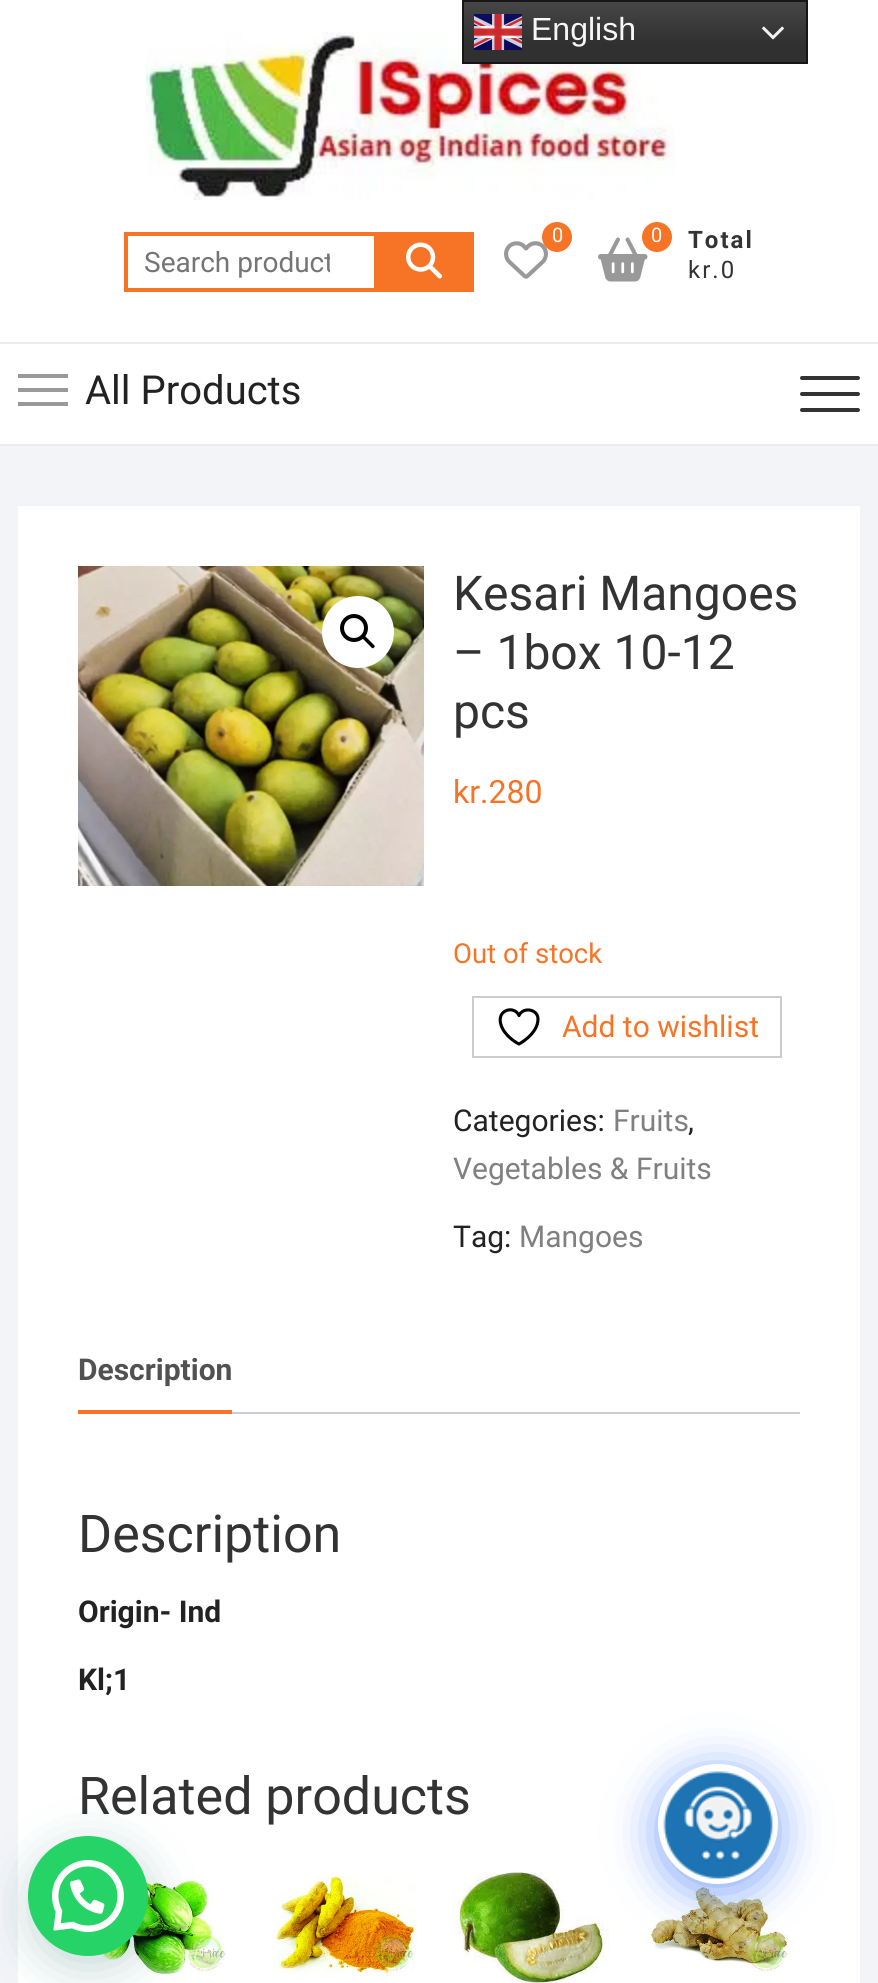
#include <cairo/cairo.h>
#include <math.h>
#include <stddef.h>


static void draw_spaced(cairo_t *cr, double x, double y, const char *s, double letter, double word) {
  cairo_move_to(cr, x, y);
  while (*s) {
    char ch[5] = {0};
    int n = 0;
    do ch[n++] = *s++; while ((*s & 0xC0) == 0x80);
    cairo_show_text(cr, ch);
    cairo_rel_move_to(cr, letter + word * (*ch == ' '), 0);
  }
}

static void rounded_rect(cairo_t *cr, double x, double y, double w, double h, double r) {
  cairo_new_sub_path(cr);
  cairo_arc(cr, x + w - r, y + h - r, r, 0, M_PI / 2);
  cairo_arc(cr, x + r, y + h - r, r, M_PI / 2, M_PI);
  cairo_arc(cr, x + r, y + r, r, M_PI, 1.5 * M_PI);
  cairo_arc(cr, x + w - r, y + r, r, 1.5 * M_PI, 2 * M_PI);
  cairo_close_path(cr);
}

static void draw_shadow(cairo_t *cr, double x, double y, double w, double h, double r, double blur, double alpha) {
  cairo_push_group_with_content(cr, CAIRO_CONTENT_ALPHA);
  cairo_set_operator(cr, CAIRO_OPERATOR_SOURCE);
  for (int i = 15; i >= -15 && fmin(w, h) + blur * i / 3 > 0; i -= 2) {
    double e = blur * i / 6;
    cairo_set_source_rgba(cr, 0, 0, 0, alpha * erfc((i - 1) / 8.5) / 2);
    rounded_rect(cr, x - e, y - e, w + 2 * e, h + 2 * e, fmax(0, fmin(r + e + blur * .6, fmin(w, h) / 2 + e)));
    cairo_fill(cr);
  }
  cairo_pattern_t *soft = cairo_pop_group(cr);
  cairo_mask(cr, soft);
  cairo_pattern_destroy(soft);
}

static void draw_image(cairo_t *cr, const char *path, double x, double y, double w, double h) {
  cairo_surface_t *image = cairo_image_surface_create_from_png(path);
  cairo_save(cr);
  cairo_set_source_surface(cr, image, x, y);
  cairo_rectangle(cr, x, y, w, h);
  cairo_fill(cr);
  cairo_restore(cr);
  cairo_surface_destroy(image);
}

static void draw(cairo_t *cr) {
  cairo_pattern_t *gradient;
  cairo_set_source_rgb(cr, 243 / 255.0, 244 / 255.0, 248 / 255.0);
  cairo_paint(cr);
  cairo_set_source_rgb(cr, 1, 1, 1);
  cairo_rectangle(cr, 0, 0, 878, 444);
  cairo_fill(cr);
  draw_image(cr, "images/3.png", 146, 32, 529, 168);
  gradient = cairo_pattern_create_linear(635, 0, 635, 64);
  cairo_pattern_add_color_stop_rgba(gradient, 0, 71 / 255.0, 71 / 255.0, 71 / 255.0, 1);
  cairo_pattern_add_color_stop_rgba(gradient, 0.7, 48 / 255.0, 48 / 255.0, 48 / 255.0, 1);
  cairo_set_source(cr, gradient);
  cairo_pattern_destroy(gradient);
  cairo_rectangle(cr, 464, 2, 342, 60);
  cairo_fill(cr);
  cairo_rectangle(cr, 463, 1, 344, 62);
  cairo_set_source_rgb(cr, 22 / 255.0, 22 / 255.0, 22 / 255.0);
  cairo_stroke(cr);
  draw_image(cr, "images/1.png", 474, 14, 48, 36);
  draw_image(cr, "images/2.png", 762, 26, 22, 14);
  cairo_set_source_rgb(cr, 247 / 255.0, 116 / 255.0, 38 / 255.0);
  cairo_rectangle(cr, 124, 232, 250, 4);
  cairo_fill(cr);
  cairo_rectangle(cr, 124, 288, 250, 4);
  cairo_fill(cr);
  cairo_rectangle(cr, 124, 232, 4, 60);
  cairo_fill(cr);
  cairo_rectangle(cr, 374, 232, 100, 60);
  cairo_fill(cr);
  draw_image(cr, "images/4.png", 406, 242, 36, 37);
  draw_image(cr, "images/5.png", 504, 241, 44, 38);
  cairo_arc(cr, 557, 237, 15, 0, 2 * M_PI);
  cairo_fill(cr);
  draw_image(cr, "images/6.png", 598, 237, 50, 45);
  cairo_arc(cr, 657, 237, 15, 0, 2 * M_PI);
  cairo_fill(cr);
  cairo_set_source_rgb(cr, 235 / 255.0, 235 / 255.0, 235 / 255.0);
  cairo_rectangle(cr, 0, 342, 878, 2);
  cairo_fill(cr);
  cairo_rectangle(cr, 0, 444, 878, 2);
  cairo_fill(cr);
  cairo_set_source_rgb(cr, 153 / 255.0, 153 / 255.0, 153 / 255.0);
  cairo_rectangle(cr, 18, 388, 50, 4);
  cairo_fill(cr);
  cairo_rectangle(cr, 18, 374, 50, 4);
  cairo_fill(cr);
  cairo_rectangle(cr, 18, 402, 50, 4);
  cairo_fill(cr);
  cairo_set_source_rgb(cr, 51 / 255.0, 51 / 255.0, 51 / 255.0);
  rounded_rect(cr, 800, 392, 60, 4, 2);
  cairo_fill(cr);
  rounded_rect(cr, 800, 376, 60, 4, 2);
  cairo_fill(cr);
  rounded_rect(cr, 800, 408, 60, 4, 2);
  cairo_fill(cr);
  cairo_set_source_rgb(cr, 1, 1, 1);
  cairo_rectangle(cr, 18, 506, 842, 1477);
  cairo_fill(cr);
  draw_image(cr, "images/7.png", 78, 566, 346, 320);
  cairo_arc(cr, 358, 632, 36, 0, 2 * M_PI);
  cairo_fill(cr);
  cairo_arc(cr, 354, 628, 12, 0, 2 * M_PI);
  cairo_set_source_rgb(cr, 0, 0, 0);
  cairo_set_line_width(cr, 4);
  cairo_stroke(cr);
  cairo_new_path(cr);
  cairo_move_to(cr, 363, 636.5);
  cairo_curve_to(cr, 363.5, 635.5, 365, 635.5, 365.5, 636.5);
  cairo_line_to(cr, 374, 645);
  cairo_curve_to(cr, 375, 645.5, 375, 647, 374, 647.5);
  cairo_curve_to(cr, 373.5, 648.5, 372, 648.5, 371.5, 647.5);
  cairo_line_to(cr, 363, 639);
  cairo_curve_to(cr, 362, 638.5, 362, 637, 363, 636.5);
  cairo_close_path(cr);
  cairo_fill(cr);
  cairo_rectangle(cr, 473, 997, 308, 60);
  cairo_set_source_rgb(cr, 204 / 255.0, 204 / 255.0, 204 / 255.0);
  cairo_set_line_width(cr, 2);
  cairo_stroke(cr);
  cairo_new_path(cr);
  cairo_move_to(cr, 538, 1019);
  cairo_curve_to(cr, 538, 1009, 523, 1006.5, 519, 1015.5);
  cairo_curve_to(cr, 514, 1004, 492.5, 1010.5, 503, 1029.5);
  cairo_curve_to(cr, 506.5, 1035.5, 513, 1041, 519, 1044);
  cairo_curve_to(cr, 519, 1044, 538, 1034, 538, 1019);
  cairo_close_path(cr);
  cairo_set_source_rgb(cr, 0, 0, 0);
  cairo_set_line_width(cr, 3.1);
  cairo_set_line_cap(cr, CAIRO_LINE_CAP_ROUND);
  cairo_set_line_join(cr, CAIRO_LINE_JOIN_ROUND);
  cairo_stroke(cr);
  cairo_set_source_rgb(cr, 247 / 255.0, 116 / 255.0, 38 / 255.0);
  cairo_rectangle(cr, 78, 1410, 154, 4);
  cairo_fill(cr);
  cairo_set_source_rgb(cr, 207 / 255.0, 200 / 255.0, 216 / 255.0);
  cairo_rectangle(cr, 232, 1412, 568, 2);
  cairo_fill(cr);
  draw_image(cr, "images/8.png", 95, 1875, 131, 102);
  draw_image(cr, "images/9.png", 272, 1875, 146, 102);
  draw_image(cr, "images/10.png", 452, 1872, 158, 111);
  draw_image(cr, "images/11.png", 646, 1884, 146, 88);
  cairo_set_source_rgb(cr, 7 / 255.0, 94 / 255.0, 84 / 255.0);
  draw_shadow(cr, 30, 1848, 120, 120, 60, 24, 0.24);
  cairo_set_source_rgb(cr, 37 / 255.0, 211 / 255.0, 102 / 255.0);
  cairo_arc(cr, 88, 1896, 60, 0, 2 * M_PI);
  cairo_fill(cr);
  draw_image(cr, "images/12.png", 52, 1860, 72, 72);
  cairo_set_source_rgb(cr, 0, 77 / 255.0, 1);
  draw_shadow(cr, 658, 1772, 120, 120, 60, 24, 0.5);
  cairo_set_source_rgb(cr, 1, 1, 1);
  cairo_arc(cr, 718, 1824, 60, 0, 2 * M_PI);
  cairo_fill(cr);
  draw_image(cr, "images/13.png", 663, 1771, 110, 108);
  cairo_select_font_face(cr, "Liberation Sans", CAIRO_FONT_SLANT_NORMAL, CAIRO_FONT_WEIGHT_NORMAL);
  cairo_set_font_size(cr, 32);
  cairo_set_source_rgb(cr, 247 / 255.0, 247 / 255.0, 247 / 255.0);
  cairo_move_to(cr, 531, 40);
  cairo_show_text(cr, "English");
  cairo_save(cr);
  cairo_rectangle(cr, 144, 246, 186, 32);
  cairo_clip(cr);
  cairo_select_font_face(cr, "Roboto", CAIRO_FONT_SLANT_NORMAL, CAIRO_FONT_WEIGHT_NORMAL);
  cairo_set_font_size(cr, 28);
  cairo_set_source_rgb(cr, 117 / 255.0, 117 / 255.0, 117 / 255.0);
  cairo_move_to(cr, 144, 272);
  cairo_show_text(cr, "Search product");
  cairo_restore(cr);
  cairo_select_font_face(cr, "Roboto", CAIRO_FONT_SLANT_NORMAL, CAIRO_FONT_WEIGHT_NORMAL);
  cairo_set_font_size(cr, 20);
  cairo_set_source_rgb(cr, 1, 1, 1);
  cairo_move_to(cr, 552, 242);
  cairo_show_text(cr, "0");
  cairo_move_to(cr, 651, 242);
  cairo_show_text(cr, "0");
  cairo_select_font_face(cr, "Roboto", CAIRO_FONT_SLANT_NORMAL, CAIRO_FONT_WEIGHT_BOLD);
  cairo_set_font_size(cr, 24);
  cairo_set_source_rgb(cr, 51 / 255.0, 51 / 255.0, 51 / 255.0);
  draw_spaced(cr, 688, 248, "Total", 2, 0);
  cairo_select_font_face(cr, "Roboto", CAIRO_FONT_SLANT_NORMAL, CAIRO_FONT_WEIGHT_NORMAL);
  draw_spaced(cr, 688, 278, "kr.0", 2, 0);
  cairo_set_font_size(cr, 40);
  cairo_set_source_rgb(cr, 34 / 255.0, 34 / 255.0, 34 / 255.0);
  cairo_move_to(cr, 85, 404);
  cairo_show_text(cr, "All Products");
  cairo_set_font_size(cr, 48);
  cairo_set_source_rgb(cr, 51 / 255.0, 51 / 255.0, 51 / 255.0);
  cairo_move_to(cr, 453, 610);
  cairo_show_text(cr, "Kesari Mangoes");
  cairo_move_to(cr, 453, 669);
  cairo_show_text(cr, "– 1box 10-12");
  cairo_move_to(cr, 453, 728);
  cairo_show_text(cr, "pcs");
  cairo_set_font_size(cr, 32);
  cairo_set_source_rgb(cr, 247 / 255.0, 116 / 255.0, 38 / 255.0);
  cairo_move_to(cr, 453, 803);
  cairo_show_text(cr, "kr.280");
  cairo_set_font_size(cr, 27.5);
  cairo_move_to(cr, 453, 963);
  cairo_show_text(cr, "Out of stock");
  cairo_set_font_size(cr, 30);
  cairo_move_to(cr, 562, 1037);
  cairo_show_text(cr, "Add to wishlist");
  cairo_set_source_rgb(cr, 34 / 255.0, 34 / 255.0, 34 / 255.0);
  cairo_move_to(cr, 453, 1131);
  cairo_show_text(cr, "Categories:");
  cairo_set_source_rgb(cr, 128 / 255.0, 128 / 255.0, 128 / 255.0);
  cairo_move_to(cr, 613, 1131);
  cairo_show_text(cr, "Fruits");
  cairo_set_source_rgb(cr, 34 / 255.0, 34 / 255.0, 34 / 255.0);
  cairo_move_to(cr, 688, 1131);
  cairo_show_text(cr, ",");
  cairo_set_source_rgb(cr, 128 / 255.0, 128 / 255.0, 128 / 255.0);
  cairo_move_to(cr, 453, 1179);
  cairo_show_text(cr, "Vegetables & Fruits");
  cairo_set_source_rgb(cr, 34 / 255.0, 34 / 255.0, 34 / 255.0);
  cairo_move_to(cr, 453, 1247);
  cairo_show_text(cr, "Tag:");
  cairo_set_source_rgb(cr, 128 / 255.0, 128 / 255.0, 128 / 255.0);
  cairo_move_to(cr, 519, 1247);
  cairo_show_text(cr, "Mangoes");
  cairo_select_font_face(cr, "Roboto", CAIRO_FONT_SLANT_NORMAL, CAIRO_FONT_WEIGHT_BOLD);
  cairo_set_source_rgb(cr, 81 / 255.0, 81 / 255.0, 81 / 255.0);
  cairo_move_to(cr, 78, 1380);
  cairo_show_text(cr, "Description");
  cairo_select_font_face(cr, "Roboto", CAIRO_FONT_SLANT_NORMAL, CAIRO_FONT_WEIGHT_NORMAL);
  cairo_set_font_size(cr, 52);
  cairo_set_source_rgb(cr, 51 / 255.0, 51 / 255.0, 51 / 255.0);
  cairo_move_to(cr, 78, 1552);
  cairo_show_text(cr, "Description");
  cairo_select_font_face(cr, "Roboto", CAIRO_FONT_SLANT_NORMAL, CAIRO_FONT_WEIGHT_BOLD);
  cairo_set_font_size(cr, 30);
  cairo_set_source_rgb(cr, 34 / 255.0, 34 / 255.0, 34 / 255.0);
  cairo_move_to(cr, 78, 1622);
  cairo_show_text(cr, "Origin- Ind");
  cairo_move_to(cr, 78, 1690);
  cairo_show_text(cr, "Kl;1");
  cairo_select_font_face(cr, "Roboto", CAIRO_FONT_SLANT_NORMAL, CAIRO_FONT_WEIGHT_NORMAL);
  cairo_set_font_size(cr, 52);
  cairo_set_source_rgb(cr, 51 / 255.0, 51 / 255.0, 51 / 255.0);
  cairo_move_to(cr, 78, 1814);
  cairo_show_text(cr, "Related products");
}

int main(void) {
  cairo_surface_t *surface = cairo_image_surface_create(CAIRO_FORMAT_RGB24, 878, 1983);
  cairo_t *cr = cairo_create(surface);
  cairo_font_options_t *options = cairo_font_options_create();
  cairo_font_options_set_hint_metrics(options, CAIRO_HINT_METRICS_OFF);
  cairo_font_options_set_hint_style(options, CAIRO_HINT_STYLE_NONE);
  cairo_set_font_options(cr, options);
  cairo_set_miter_limit(cr, 4);
  draw(cr);
  cairo_surface_write_to_png(surface, "out.png");
  cairo_font_options_destroy(options);
  cairo_destroy(cr);
  cairo_surface_destroy(surface);
  return 0;
}
